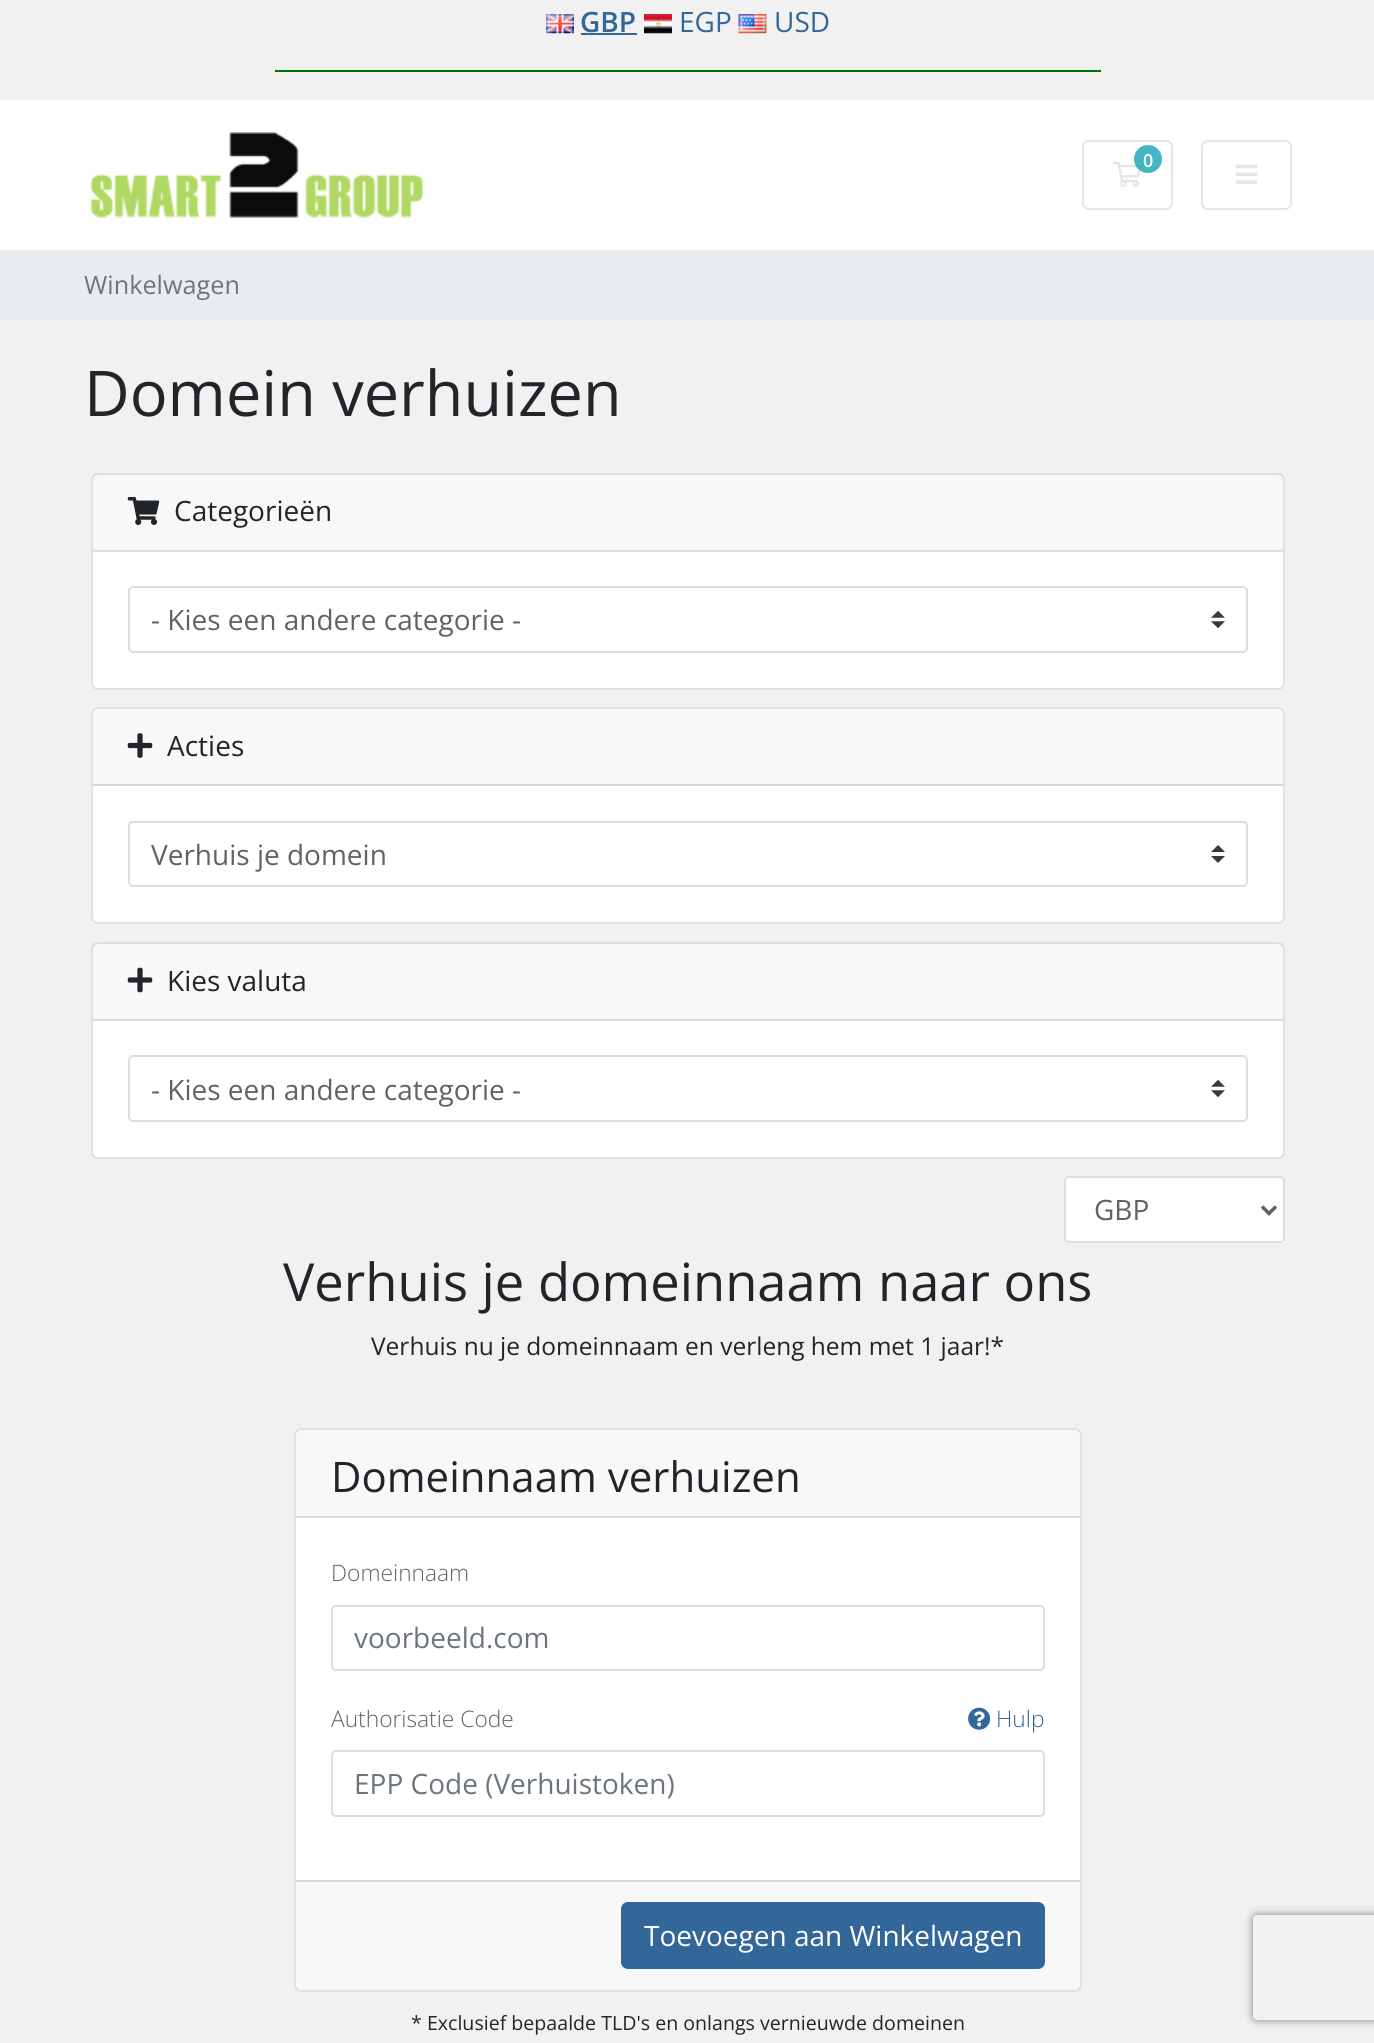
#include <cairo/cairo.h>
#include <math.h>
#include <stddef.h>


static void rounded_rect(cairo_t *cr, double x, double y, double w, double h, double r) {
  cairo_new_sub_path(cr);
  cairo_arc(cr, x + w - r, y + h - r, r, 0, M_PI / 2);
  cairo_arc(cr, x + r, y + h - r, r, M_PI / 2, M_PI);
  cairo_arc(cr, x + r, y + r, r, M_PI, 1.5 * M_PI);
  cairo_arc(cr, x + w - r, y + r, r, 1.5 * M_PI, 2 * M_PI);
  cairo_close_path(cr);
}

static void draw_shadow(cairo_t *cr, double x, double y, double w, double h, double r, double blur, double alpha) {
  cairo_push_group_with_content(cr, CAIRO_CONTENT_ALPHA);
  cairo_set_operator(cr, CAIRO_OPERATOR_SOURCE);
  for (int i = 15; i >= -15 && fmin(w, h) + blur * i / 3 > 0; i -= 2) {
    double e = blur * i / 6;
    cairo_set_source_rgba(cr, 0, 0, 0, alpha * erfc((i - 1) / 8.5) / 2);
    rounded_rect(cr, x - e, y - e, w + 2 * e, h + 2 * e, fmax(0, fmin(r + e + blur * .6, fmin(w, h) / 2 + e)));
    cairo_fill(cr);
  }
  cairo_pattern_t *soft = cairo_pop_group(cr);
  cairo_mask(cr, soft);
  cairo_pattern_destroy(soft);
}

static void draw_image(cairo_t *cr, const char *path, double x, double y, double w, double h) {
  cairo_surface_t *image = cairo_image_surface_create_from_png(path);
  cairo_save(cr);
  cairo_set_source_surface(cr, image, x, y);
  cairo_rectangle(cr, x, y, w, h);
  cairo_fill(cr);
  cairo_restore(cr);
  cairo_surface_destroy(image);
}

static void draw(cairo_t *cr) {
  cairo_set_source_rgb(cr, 241 / 255.0, 241 / 255.0, 241 / 255.0);
  cairo_paint(cr);
  draw_image(cr, "images/1.png", 546, 14, 28, 20);
  cairo_set_source_rgb(cr, 51 / 255.0, 102 / 255.0, 153 / 255.0);
  cairo_rectangle(cr, 581, 33, 56, 2);
  cairo_fill(cr);
  draw_image(cr, "images/2.png", 644, 14, 28, 20);
  draw_image(cr, "images/3.png", 738, 14, 29, 20);
  cairo_set_source_rgb(cr, 0, 115 / 255.0, 0);
  cairo_rectangle(cr, 275, 70, 826, 2);
  cairo_fill(cr);
  cairo_set_source_rgb(cr, 1, 1, 1);
  cairo_rectangle(cr, 0, 100, 1374, 150);
  cairo_fill(cr);
  draw_image(cr, "images/4.png", 90, 132, 333, 86);
  rounded_rect(cr, 1083, 141, 89, 68, 6);
  cairo_set_source_rgb(cr, 229 / 255.0, 229 / 255.0, 229 / 255.0);
  cairo_stroke(cr);
  draw_image(cr, "images/5.png", 1113, 161, 29, 26);
  cairo_set_source_rgba(cr, 23 / 255.0, 162 / 255.0, 184 / 255.0, 0.8);
  cairo_arc(cr, 1148, 159, 14, 0, 2 * M_PI);
  cairo_fill(cr);
  rounded_rect(cr, 1202, 141, 89, 68, 6);
  cairo_set_source_rgb(cr, 229 / 255.0, 229 / 255.0, 229 / 255.0);
  cairo_stroke(cr);
  draw_image(cr, "images/6.png", 1235, 164, 23, 20);
  cairo_set_source_rgb(cr, 233 / 255.0, 236 / 255.0, 239 / 255.0);
  cairo_rectangle(cr, 0, 250, 1374, 70);
  cairo_fill(cr);
  cairo_set_source_rgb(cr, 1, 1, 1);
  rounded_rect(cr, 91, 473, 1194, 217, 7);
  cairo_fill(cr);
  rounded_rect(cr, 92, 474, 1192, 215, 6);
  cairo_set_source_rgba(cr, 0, 0, 0, 0.12);
  cairo_stroke(cr);
  cairo_set_source_rgba(cr, 0, 0, 0, 0.03);
  cairo_rectangle(cr, 93, 474, 1190, 77);
  cairo_fill(cr);
  cairo_set_source_rgba(cr, 0, 0, 0, 0.12);
  cairo_rectangle(cr, 93, 550, 1190, 2);
  cairo_fill(cr);
  draw_image(cr, "images/7.png", 127, 497, 33, 28);
  draw_image(cr, "images/8.png", 1211, 611, 14, 17);
  rounded_rect(cr, 129, 587, 1118, 65, 4);
  cairo_set_source_rgb(cr, 221 / 255.0, 221 / 255.0, 221 / 255.0);
  cairo_stroke(cr);
  cairo_set_source_rgb(cr, 1, 1, 1);
  rounded_rect(cr, 91, 707, 1194, 217, 7);
  cairo_fill(cr);
  rounded_rect(cr, 92, 708, 1192, 215, 6);
  cairo_set_source_rgba(cr, 0, 0, 0, 0.12);
  cairo_stroke(cr);
  cairo_set_source_rgba(cr, 0, 0, 0, 0.03);
  cairo_rectangle(cr, 93, 709, 1190, 75);
  cairo_fill(cr);
  cairo_set_source_rgb(cr, 216 / 255.0, 216 / 255.0, 216 / 255.0);
  cairo_rectangle(cr, 93, 784, 1190, 2);
  cairo_fill(cr);
  draw_image(cr, "images/9.png", 127, 733, 26, 25);
  cairo_set_source_rgb(cr, 52 / 255.0, 58 / 255.0, 64 / 255.0);
  cairo_new_path(cr);
  cairo_move_to(cr, 1218, 845);
  cairo_line_to(cr, 1211, 852);
  cairo_line_to(cr, 1225, 852);
  cairo_close_path(cr);
  cairo_move_to(cr, 1218, 863);
  cairo_line_to(cr, 1211, 856);
  cairo_line_to(cr, 1225, 856);
  cairo_close_path(cr);
  cairo_fill(cr);
  rounded_rect(cr, 129, 822, 1118, 64, 4);
  cairo_set_source_rgb(cr, 221 / 255.0, 221 / 255.0, 221 / 255.0);
  cairo_stroke(cr);
  cairo_set_source_rgb(cr, 1, 1, 1);
  rounded_rect(cr, 91, 942, 1194, 217, 7);
  cairo_fill(cr);
  rounded_rect(cr, 92, 943, 1192, 215, 6);
  cairo_set_source_rgba(cr, 0, 0, 0, 0.12);
  cairo_stroke(cr);
  cairo_set_source_rgba(cr, 0, 0, 0, 0.03);
  cairo_rectangle(cr, 93, 943, 1190, 77);
  cairo_fill(cr);
  cairo_set_source_rgba(cr, 0, 0, 0, 0.12);
  cairo_rectangle(cr, 93, 1019, 1190, 2);
  cairo_fill(cr);
  draw_image(cr, "images/10.png", 127, 967, 26, 26);
  draw_image(cr, "images/8.png", 1211, 1080, 14, 17);
  rounded_rect(cr, 129, 1056, 1118, 65, 4);
  cairo_set_source_rgb(cr, 221 / 255.0, 221 / 255.0, 221 / 255.0);
  cairo_stroke(cr);
  cairo_set_source_rgb(cr, 1, 1, 1);
  rounded_rect(cr, 1065, 1177, 219, 65, 4);
  cairo_fill_preserve(cr);
  cairo_set_source_rgb(cr, 221 / 255.0, 221 / 255.0, 221 / 255.0);
  cairo_stroke(cr);
  cairo_new_path(cr);
  cairo_move_to(cr, 1262, 1206.5);
  cairo_line_to(cr, 1269, 1213.5);
  cairo_line_to(cr, 1276, 1206.5);
  cairo_set_source_rgb(cr, 98 / 255.0, 98 / 255.0, 98 / 255.0);
  cairo_set_line_width(cr, 3.5);
  cairo_stroke(cr);
  cairo_set_source_rgb(cr, 1, 1, 1);
  rounded_rect(cr, 294, 1428, 788, 564, 7);
  cairo_fill(cr);
  rounded_rect(cr, 295, 1429, 786, 562, 6);
  cairo_set_source_rgba(cr, 0, 0, 0, 0.12);
  cairo_set_line_width(cr, 2);
  cairo_stroke(cr);
  cairo_set_source_rgba(cr, 0, 0, 0, 0.03);
  cairo_rectangle(cr, 296, 1430, 784, 87);
  cairo_fill(cr);
  cairo_set_source_rgba(cr, 0, 0, 0, 0.12);
  cairo_rectangle(cr, 296, 1516, 784, 2);
  cairo_fill(cr);
  rounded_rect(cr, 332, 1606, 712, 64, 4);
  cairo_set_source_rgb(cr, 221 / 255.0, 221 / 255.0, 221 / 255.0);
  cairo_stroke(cr);
  draw_image(cr, "images/11.png", 968, 1707, 23, 23);
  rounded_rect(cr, 332, 1751, 712, 65, 4);
  cairo_stroke(cr);
  cairo_set_source_rgba(cr, 0, 0, 0, 0.03);
  cairo_rectangle(cr, 296, 1882, 784, 108);
  cairo_fill(cr);
  cairo_set_source_rgb(cr, 216 / 255.0, 216 / 255.0, 216 / 255.0);
  cairo_rectangle(cr, 296, 1880, 784, 2);
  cairo_fill(cr);
  cairo_set_source_rgb(cr, 51 / 255.0, 102 / 255.0, 153 / 255.0);
  rounded_rect(cr, 622, 1903, 422, 65, 6);
  cairo_fill_preserve(cr);
  cairo_stroke(cr);
  cairo_save(cr);
  cairo_set_fill_rule(cr, CAIRO_FILL_RULE_EVEN_ODD);
  cairo_new_path(cr);
  cairo_move_to(cr, 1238, 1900);
  cairo_line_to(cr, 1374, 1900);
  cairo_line_to(cr, 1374, 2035);
  cairo_line_to(cr, 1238, 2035);
  cairo_close_path(cr);
  cairo_move_to(cr, 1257, 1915);
  cairo_line_to(cr, 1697, 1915);
  cairo_curve_to(cr, 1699, 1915, 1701, 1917, 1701, 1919);
  cairo_line_to(cr, 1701, 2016);
  cairo_curve_to(cr, 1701, 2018, 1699, 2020, 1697, 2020);
  cairo_line_to(cr, 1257, 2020);
  cairo_curve_to(cr, 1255, 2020, 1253, 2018, 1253, 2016);
  cairo_line_to(cr, 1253, 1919);
  cairo_curve_to(cr, 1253, 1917, 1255, 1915, 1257, 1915);
  cairo_close_path(cr);
  cairo_clip(cr);
  cairo_set_source_rgb(cr, 128 / 255.0, 128 / 255.0, 128 / 255.0);
  draw_shadow(cr, 1253, 1915, 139, 105, 4, 4.5, 1);
  cairo_restore(cr);
  cairo_select_font_face(cr, "Open Sans SemiBold", CAIRO_FONT_SLANT_NORMAL, CAIRO_FONT_WEIGHT_NORMAL);
  cairo_set_font_size(cr, 28);
  cairo_move_to(cr, 580, 32);
  cairo_show_text(cr, "GBP");
  cairo_select_font_face(cr, "Open Sans", CAIRO_FONT_SLANT_NORMAL, CAIRO_FONT_WEIGHT_NORMAL);
  cairo_move_to(cr, 679, 32);
  cairo_show_text(cr, "EGP");
  cairo_move_to(cr, 774, 32);
  cairo_show_text(cr, "USD");
  cairo_select_font_face(cr, "Open Sans SemiBold", CAIRO_FONT_SLANT_NORMAL, CAIRO_FONT_WEIGHT_NORMAL);
  cairo_set_font_size(cr, 18);
  cairo_set_source_rgb(cr, 1, 1, 1);
  cairo_move_to(cr, 1143, 167);
  cairo_show_text(cr, "0");
  cairo_select_font_face(cr, "Open Sans", CAIRO_FONT_SLANT_NORMAL, CAIRO_FONT_WEIGHT_NORMAL);
  cairo_set_font_size(cr, 25.25);
  cairo_set_source_rgb(cr, 108 / 255.0, 117 / 255.0, 125 / 255.0);
  cairo_move_to(cr, 84, 294);
  cairo_show_text(cr, "Winkelwagen");
  cairo_set_font_size(cr, 63);
  cairo_set_source_rgb(cr, 33 / 255.0, 37 / 255.0, 41 / 255.0);
  cairo_move_to(cr, 84, 416);
  cairo_show_text(cr, "Domein verhuizen");
  cairo_set_font_size(cr, 28);
  cairo_move_to(cr, 174, 521);
  cairo_show_text(cr, "Categorieën");
  cairo_set_source_rgb(cr, 98 / 255.0, 98 / 255.0, 98 / 255.0);
  cairo_move_to(cr, 151, 630);
  cairo_show_text(cr, "- Kies een andere categorie -");
  cairo_set_source_rgb(cr, 33 / 255.0, 37 / 255.0, 41 / 255.0);
  cairo_move_to(cr, 167, 756);
  cairo_show_text(cr, "Acties");
  cairo_set_source_rgb(cr, 98 / 255.0, 98 / 255.0, 98 / 255.0);
  cairo_move_to(cr, 151, 865);
  cairo_show_text(cr, "Verhuis je domein");
  cairo_set_source_rgb(cr, 33 / 255.0, 37 / 255.0, 41 / 255.0);
  cairo_move_to(cr, 167, 991);
  cairo_show_text(cr, "Kies valuta");
  cairo_set_source_rgb(cr, 98 / 255.0, 98 / 255.0, 98 / 255.0);
  cairo_move_to(cr, 151, 1100);
  cairo_show_text(cr, "- Kies een andere categorie -");
  cairo_move_to(cr, 1094, 1220);
  cairo_show_text(cr, "GBP");
  cairo_set_font_size(cr, 52.5);
  cairo_set_source_rgb(cr, 33 / 255.0, 37 / 255.0, 41 / 255.0);
  cairo_move_to(cr, 283, 1301);
  cairo_show_text(cr, "Verhuis je domeinnaam naar ons");
  cairo_set_font_size(cr, 24.5);
  cairo_move_to(cr, 371, 1355);
  cairo_show_text(cr, "Verhuis nu je domeinnaam en verleng hem met 1 jaar!*");
  cairo_set_font_size(cr, 42);
  cairo_move_to(cr, 331, 1492);
  cairo_show_text(cr, "Domeinnaam verhuizen");
  cairo_select_font_face(cr, "Open Sans Light", CAIRO_FONT_SLANT_NORMAL, CAIRO_FONT_WEIGHT_NORMAL);
  cairo_set_font_size(cr, 22.75);
  cairo_set_source_rgb(cr, 98 / 255.0, 98 / 255.0, 98 / 255.0);
  cairo_move_to(cr, 331, 1581);
  cairo_show_text(cr, "Domeinnaam");
  cairo_select_font_face(cr, "Open Sans", CAIRO_FONT_SLANT_NORMAL, CAIRO_FONT_WEIGHT_NORMAL);
  cairo_set_font_size(cr, 28);
  cairo_set_source_rgb(cr, 108 / 255.0, 117 / 255.0, 125 / 255.0);
  cairo_move_to(cr, 354, 1648);
  cairo_show_text(cr, "voorbeeld.com");
  cairo_select_font_face(cr, "Open Sans Light", CAIRO_FONT_SLANT_NORMAL, CAIRO_FONT_WEIGHT_NORMAL);
  cairo_set_font_size(cr, 22.75);
  cairo_set_source_rgb(cr, 98 / 255.0, 98 / 255.0, 98 / 255.0);
  cairo_move_to(cr, 331, 1727);
  cairo_show_text(cr, "Authorisatie Code");
  cairo_set_source_rgb(cr, 51 / 255.0, 102 / 255.0, 153 / 255.0);
  cairo_move_to(cr, 996, 1727);
  cairo_show_text(cr, "Hulp");
  cairo_select_font_face(cr, "Open Sans", CAIRO_FONT_SLANT_NORMAL, CAIRO_FONT_WEIGHT_NORMAL);
  cairo_set_font_size(cr, 28);
  cairo_set_source_rgb(cr, 108 / 255.0, 117 / 255.0, 125 / 255.0);
  cairo_move_to(cr, 354, 1794);
  cairo_show_text(cr, "EPP Code (Verhuistoken)");
  cairo_set_source_rgb(cr, 1, 1, 1);
  cairo_move_to(cr, 644, 1946);
  cairo_show_text(cr, "Toevoegen aan Winkelwagen");
  cairo_set_font_size(cr, 19.6);
  cairo_set_source_rgb(cr, 33 / 255.0, 37 / 255.0, 41 / 255.0);
  cairo_move_to(cr, 411, 2030);
  cairo_show_text(cr, "* Exclusief bepaalde TLD's en onlangs vernieuwde domeinen");
}

int main(void) {
  cairo_surface_t *surface = cairo_image_surface_create(CAIRO_FORMAT_RGB24, 1374, 2043);
  cairo_t *cr = cairo_create(surface);
  cairo_font_options_t *options = cairo_font_options_create();
  cairo_font_options_set_hint_metrics(options, CAIRO_HINT_METRICS_OFF);
  cairo_font_options_set_hint_style(options, CAIRO_HINT_STYLE_NONE);
  cairo_set_font_options(cr, options);
  cairo_set_miter_limit(cr, 4);
  draw(cr);
  cairo_surface_write_to_png(surface, "out.png");
  cairo_font_options_destroy(options);
  cairo_destroy(cr);
  cairo_surface_destroy(surface);
  return 0;
}
